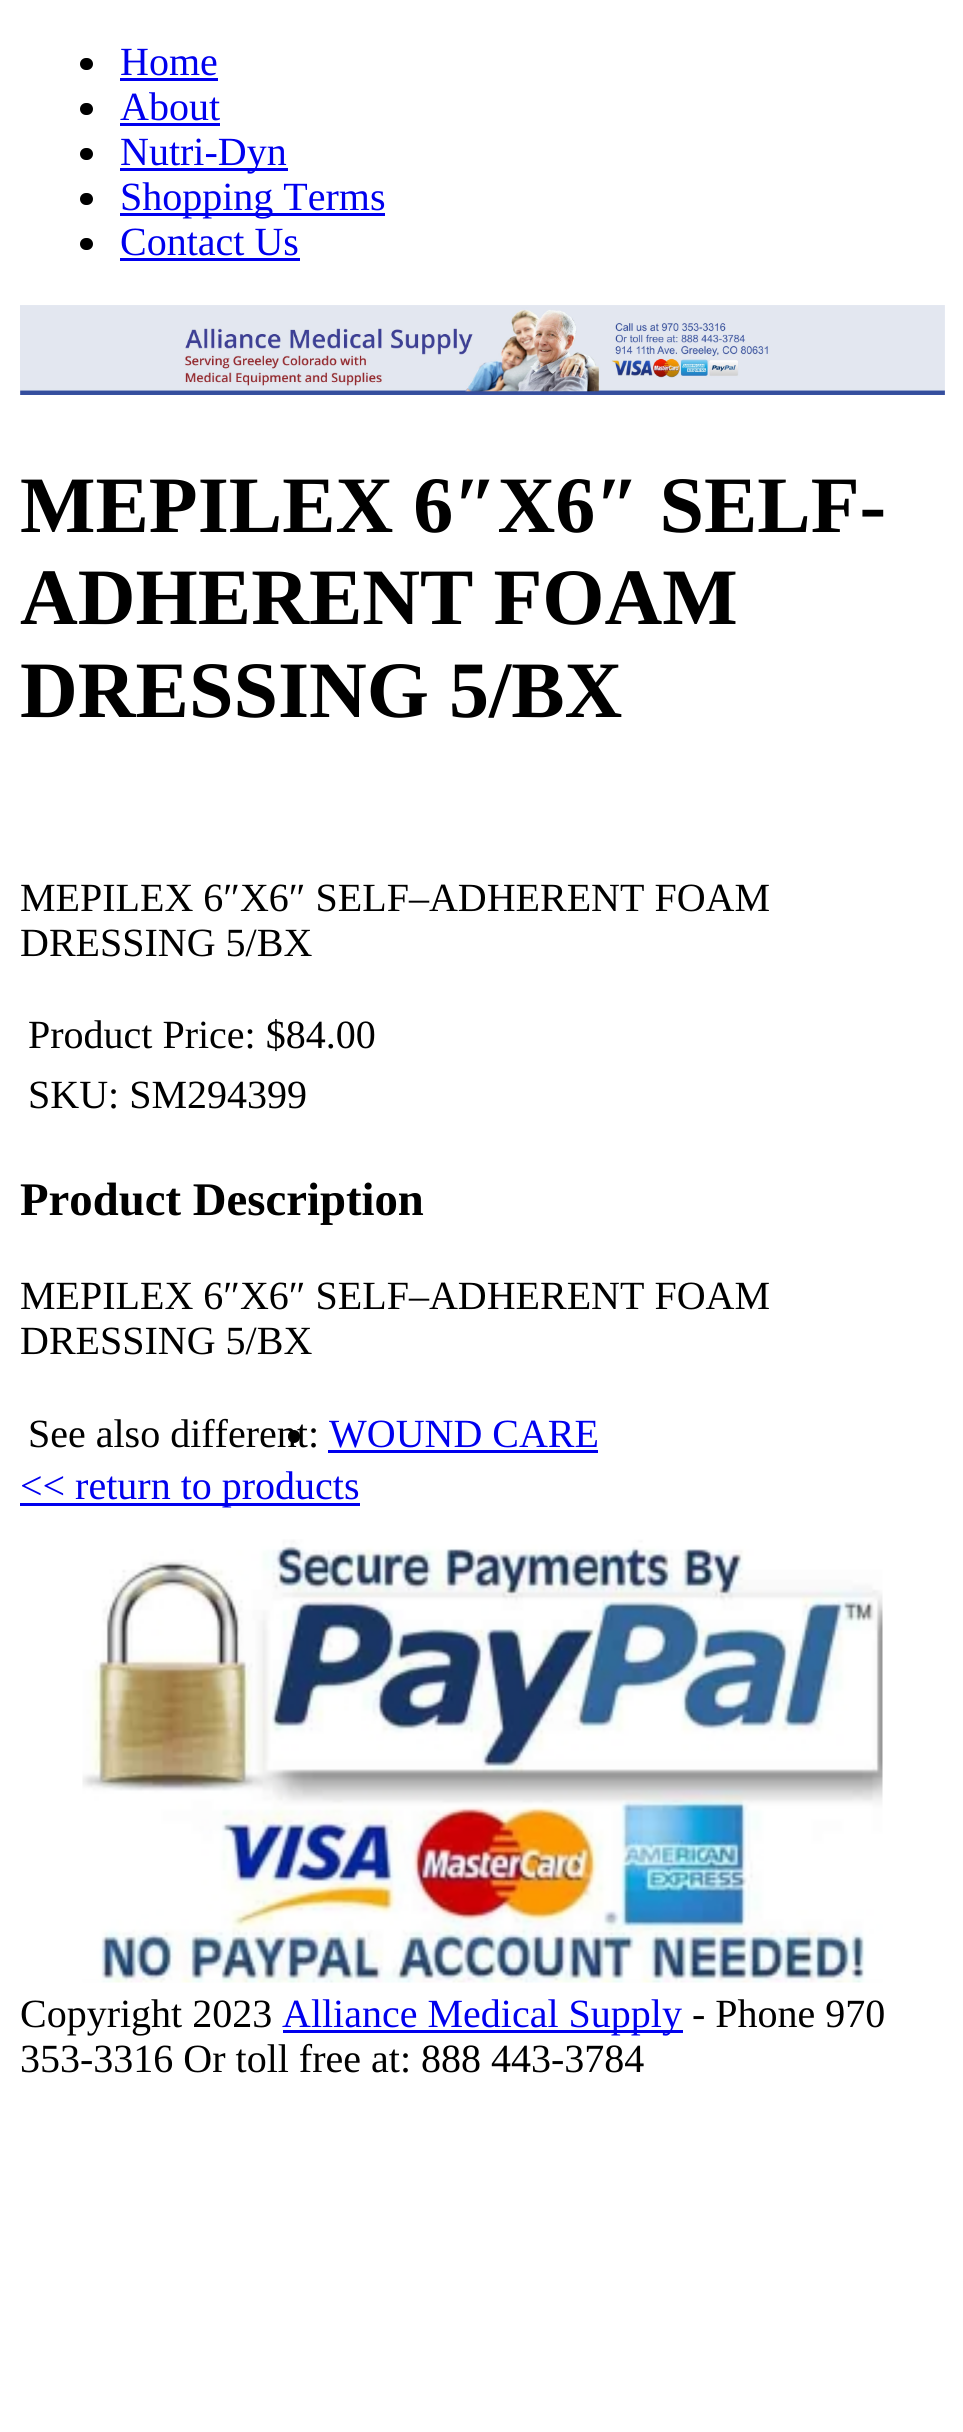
#include <cairo/cairo.h>
#include <math.h>
#include <stddef.h>


static void rounded_rect(cairo_t *cr, double x, double y, double w, double h, double r) {
  cairo_new_sub_path(cr);
  cairo_arc(cr, x + w - r, y + h - r, r, 0, M_PI / 2);
  cairo_arc(cr, x + r, y + h - r, r, M_PI / 2, M_PI);
  cairo_arc(cr, x + r, y + r, r, M_PI, 1.5 * M_PI);
  cairo_arc(cr, x + w - r, y + r, r, 1.5 * M_PI, 2 * M_PI);
  cairo_close_path(cr);
}

static void draw_image(cairo_t *cr, const char *path, double x, double y, double w, double h) {
  cairo_surface_t *image = cairo_image_surface_create_from_png(path);
  cairo_save(cr);
  cairo_set_source_surface(cr, image, x, y);
  cairo_rectangle(cr, x, y, w, h);
  cairo_fill(cr);
  cairo_restore(cr);
  cairo_surface_destroy(image);
}

static void draw(cairo_t *cr) {
  cairo_set_source_rgb(cr, 1, 1, 1);
  cairo_paint(cr);
  cairo_set_source_rgb(cr, 0, 0, 0);
  rounded_rect(cr, 80, 58, 13, 12, 6);
  cairo_fill(cr);
  cairo_set_source_rgb(cr, 0, 0, 238 / 255.0);
  cairo_rectangle(cr, 120, 78, 98, 3);
  cairo_fill(cr);
  cairo_set_source_rgb(cr, 0, 0, 0);
  rounded_rect(cr, 80, 103, 13, 12, 6);
  cairo_fill(cr);
  cairo_set_source_rgb(cr, 0, 0, 238 / 255.0);
  cairo_rectangle(cr, 120, 123, 100, 3);
  cairo_fill(cr);
  cairo_set_source_rgb(cr, 0, 0, 0);
  rounded_rect(cr, 80, 148, 13, 12, 6);
  cairo_fill(cr);
  cairo_set_source_rgb(cr, 0, 0, 238 / 255.0);
  cairo_rectangle(cr, 120, 168, 168, 3);
  cairo_fill(cr);
  cairo_set_source_rgb(cr, 0, 0, 0);
  rounded_rect(cr, 80, 193, 13, 12, 6);
  cairo_fill(cr);
  cairo_set_source_rgb(cr, 0, 0, 238 / 255.0);
  cairo_rectangle(cr, 120, 213, 265, 3);
  cairo_fill(cr);
  cairo_set_source_rgb(cr, 0, 0, 0);
  rounded_rect(cr, 80, 238, 13, 12, 6);
  cairo_fill(cr);
  cairo_set_source_rgb(cr, 0, 0, 238 / 255.0);
  cairo_rectangle(cr, 120, 258, 180, 3);
  cairo_fill(cr);
  draw_image(cr, "images/1.png", 20, 305, 925, 90);
  cairo_set_source_rgb(cr, 0, 0, 0);
  rounded_rect(cr, 288, 1430, 12, 13, 6);
  cairo_fill(cr);
  cairo_set_source_rgb(cr, 0, 0, 238 / 255.0);
  cairo_rectangle(cr, 328, 1450, 270, 3);
  cairo_fill(cr);
  cairo_rectangle(cr, 20, 1503, 340, 3);
  cairo_fill(cr);
  draw_image(cr, "images/2.png", 82, 1539, 801, 444);
  cairo_rectangle(cr, 283, 2030, 400, 3);
  cairo_fill(cr);
  cairo_select_font_face(cr, "Liberation Serif", CAIRO_FONT_SLANT_NORMAL, CAIRO_FONT_WEIGHT_NORMAL);
  cairo_set_font_size(cr, 40);
  cairo_move_to(cr, 120, 75);
  cairo_show_text(cr, "Home");
  cairo_move_to(cr, 120, 120);
  cairo_show_text(cr, "About");
  cairo_move_to(cr, 120, 165);
  cairo_show_text(cr, "Nutri-Dyn");
  cairo_move_to(cr, 120, 210);
  cairo_show_text(cr, "Shopping Terms");
  cairo_move_to(cr, 120, 255);
  cairo_show_text(cr, "Contact Us");
  cairo_select_font_face(cr, "Liberation Serif", CAIRO_FONT_SLANT_NORMAL, CAIRO_FONT_WEIGHT_BOLD);
  cairo_set_font_size(cr, 80);
  cairo_set_source_rgb(cr, 0, 0, 0);
  cairo_move_to(cr, 20, 532);
  cairo_show_text(cr, "MEPILEX 6″X6″ SELF-");
  cairo_move_to(cr, 20, 624);
  cairo_show_text(cr, "ADHERENT FOAM");
  cairo_move_to(cr, 20, 717);
  cairo_show_text(cr, "DRESSING 5/BX");
  cairo_select_font_face(cr, "Liberation Serif", CAIRO_FONT_SLANT_NORMAL, CAIRO_FONT_WEIGHT_NORMAL);
  cairo_set_font_size(cr, 40);
  cairo_move_to(cr, 20, 911);
  cairo_show_text(cr, "MEPILEX 6″X6″ SELF–ADHERENT FOAM");
  cairo_move_to(cr, 20, 956);
  cairo_show_text(cr, "DRESSING 5/BX");
  cairo_move_to(cr, 28, 1048);
  cairo_show_text(cr, "Product Price: $84.00");
  cairo_move_to(cr, 28, 1108);
  cairo_show_text(cr, "SKU: SM294399");
  cairo_select_font_face(cr, "Liberation Serif", CAIRO_FONT_SLANT_NORMAL, CAIRO_FONT_WEIGHT_BOLD);
  cairo_set_font_size(cr, 46.75);
  cairo_move_to(cr, 20, 1215);
  cairo_show_text(cr, "Product Description");
  cairo_select_font_face(cr, "Liberation Serif", CAIRO_FONT_SLANT_NORMAL, CAIRO_FONT_WEIGHT_NORMAL);
  cairo_set_font_size(cr, 40);
  cairo_move_to(cr, 20, 1309);
  cairo_show_text(cr, "MEPILEX 6″X6″ SELF–ADHERENT FOAM");
  cairo_move_to(cr, 20, 1354);
  cairo_show_text(cr, "DRESSING 5/BX");
  cairo_move_to(cr, 28, 1447);
  cairo_show_text(cr, "See also different:");
  cairo_set_source_rgb(cr, 0, 0, 238 / 255.0);
  cairo_move_to(cr, 329, 1447);
  cairo_show_text(cr, "WOUND CARE");
  cairo_move_to(cr, 20, 1499);
  cairo_show_text(cr, "<< return to products");
  cairo_set_source_rgb(cr, 0, 0, 0);
  cairo_move_to(cr, 20, 2027);
  cairo_show_text(cr, "Copyright 2023");
  cairo_set_source_rgb(cr, 0, 0, 238 / 255.0);
  cairo_move_to(cr, 282, 2027);
  cairo_show_text(cr, "Alliance Medical Supply");
  cairo_set_source_rgb(cr, 0, 0, 0);
  cairo_move_to(cr, 692, 2027);
  cairo_show_text(cr, "- Phone 970");
  cairo_move_to(cr, 20, 2072);
  cairo_show_text(cr, "353-3316 Or toll free at: 888 443-3784");
}

int main(void) {
  cairo_surface_t *surface = cairo_image_surface_create(CAIRO_FORMAT_RGB24, 963, 2432);
  cairo_t *cr = cairo_create(surface);
  cairo_font_options_t *options = cairo_font_options_create();
  cairo_font_options_set_hint_metrics(options, CAIRO_HINT_METRICS_OFF);
  cairo_font_options_set_hint_style(options, CAIRO_HINT_STYLE_NONE);
  cairo_set_font_options(cr, options);
  cairo_set_miter_limit(cr, 4);
  draw(cr);
  cairo_surface_write_to_png(surface, "out.png");
  cairo_font_options_destroy(options);
  cairo_destroy(cr);
  cairo_surface_destroy(surface);
  return 0;
}
